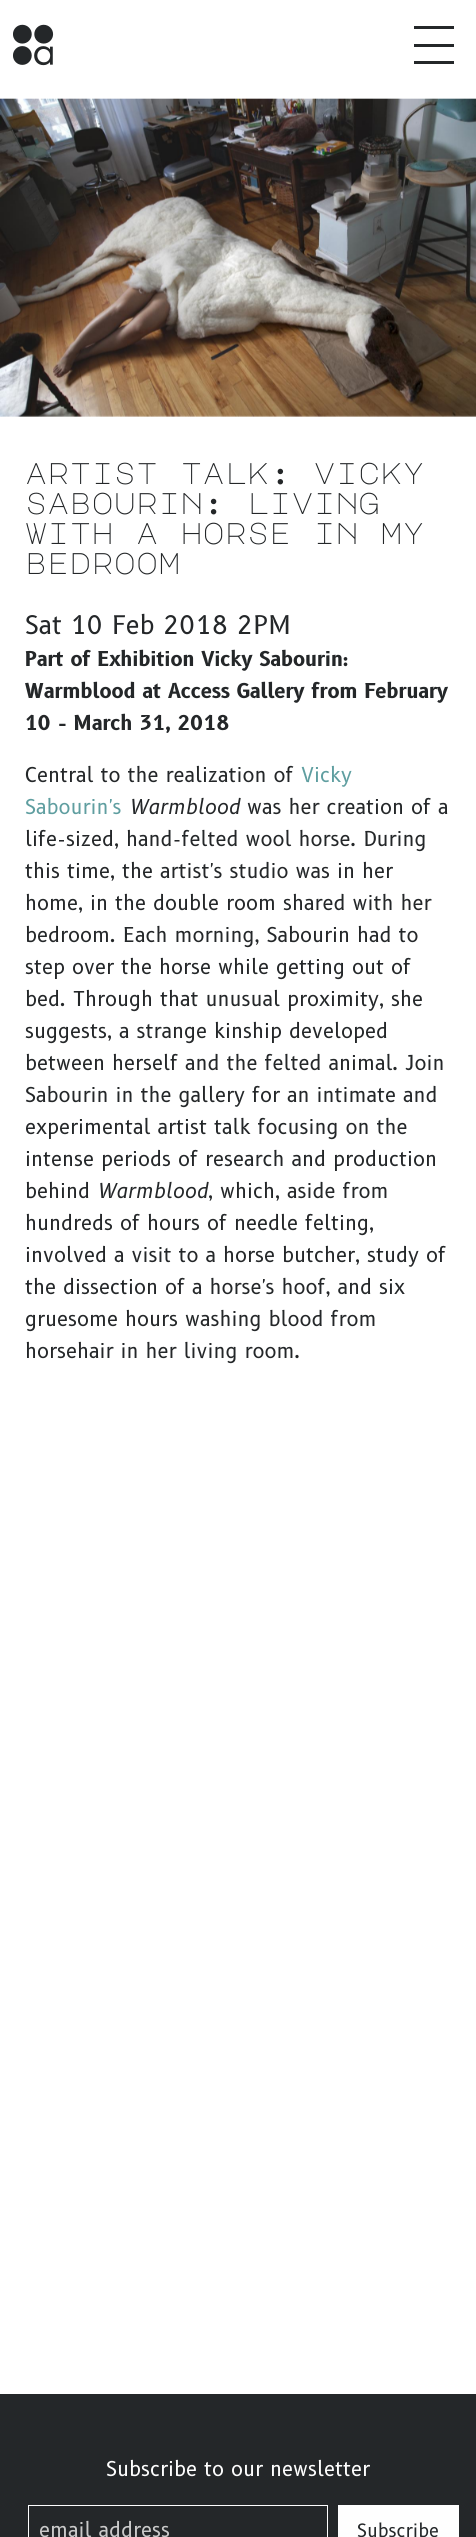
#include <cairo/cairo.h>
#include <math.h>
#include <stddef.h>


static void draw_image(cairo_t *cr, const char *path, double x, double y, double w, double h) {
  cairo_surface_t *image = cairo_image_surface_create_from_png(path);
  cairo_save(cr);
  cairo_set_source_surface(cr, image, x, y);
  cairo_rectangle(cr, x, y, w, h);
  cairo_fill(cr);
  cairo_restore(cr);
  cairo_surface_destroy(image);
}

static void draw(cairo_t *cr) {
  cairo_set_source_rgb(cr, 1, 1, 1);
  cairo_paint(cr);
  draw_image(cr, "images/1.png", 13, 24, 41, 42);
  cairo_set_source_rgb(cr, 36 / 255.0, 39 / 255.0, 41 / 255.0);
  cairo_rectangle(cr, 414, 26, 40, 3);
  cairo_fill(cr);
  cairo_rectangle(cr, 414, 44, 40, 3);
  cairo_fill(cr);
  cairo_rectangle(cr, 414, 61, 40, 3);
  cairo_fill(cr);
  draw_image(cr, "images/2.png", 0, 98, 476, 319);
  cairo_rectangle(cr, 0, 2394, 476, 143);
  cairo_fill(cr);
  cairo_rectangle(cr, 28.5, 2505.5, 299, 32);
  cairo_set_source_rgb(cr, 254 / 255.0, 254 / 255.0, 254 / 255.0);
  cairo_set_line_width(cr, 1);
  cairo_stroke(cr);
  cairo_rectangle(cr, 338, 2505, 121, 32);
  cairo_fill(cr);
  cairo_select_font_face(cr, "Major Mono Display", CAIRO_FONT_SLANT_NORMAL, CAIRO_FONT_WEIGHT_NORMAL);
  cairo_set_font_size(cr, 30);
  cairo_set_source_rgb(cr, 36 / 255.0, 39 / 255.0, 41 / 255.0);
  cairo_move_to(cr, 25, 484);
  cairo_show_text(cr, "artist talk: vicky");
  cairo_move_to(cr, 25, 514);
  cairo_show_text(cr, "sabourin: living");
  cairo_move_to(cr, 25, 544);
  cairo_show_text(cr, "with a horse in my");
  cairo_move_to(cr, 25, 574);
  cairo_show_text(cr, "bedroom");
  cairo_select_font_face(cr, "B612", CAIRO_FONT_SLANT_NORMAL, CAIRO_FONT_WEIGHT_NORMAL);
  cairo_set_font_size(cr, 25);
  cairo_move_to(cr, 25, 634);
  cairo_show_text(cr, "Sat 10 Feb 2018 2PM");
  cairo_select_font_face(cr, "B612", CAIRO_FONT_SLANT_NORMAL, CAIRO_FONT_WEIGHT_BOLD);
  cairo_set_font_size(cr, 20);
  cairo_move_to(cr, 25, 666);
  cairo_show_text(cr, "Part of Exhibition Vicky Sabourin:");
  cairo_move_to(cr, 25, 698);
  cairo_show_text(cr, "Warmblood at Access Gallery from February");
  cairo_move_to(cr, 25, 730);
  cairo_show_text(cr, "10 - March 31, 2018");
  cairo_select_font_face(cr, "B612", CAIRO_FONT_SLANT_NORMAL, CAIRO_FONT_WEIGHT_NORMAL);
  cairo_move_to(cr, 25, 782);
  cairo_show_text(cr, "Central to the realization of");
  cairo_set_source_rgb(cr, 95 / 255.0, 158 / 255.0, 160 / 255.0);
  cairo_move_to(cr, 301, 782);
  cairo_show_text(cr, "Vicky");
  cairo_move_to(cr, 25, 814);
  cairo_show_text(cr, "Sabourin's");
  cairo_select_font_face(cr, "B612", CAIRO_FONT_SLANT_ITALIC, CAIRO_FONT_WEIGHT_NORMAL);
  cairo_set_source_rgb(cr, 36 / 255.0, 39 / 255.0, 41 / 255.0);
  cairo_move_to(cr, 129, 814);
  cairo_show_text(cr, "Warmblood");
  cairo_select_font_face(cr, "B612", CAIRO_FONT_SLANT_NORMAL, CAIRO_FONT_WEIGHT_NORMAL);
  cairo_move_to(cr, 247, 814);
  cairo_show_text(cr, "was her creation of a");
  cairo_move_to(cr, 25, 846);
  cairo_show_text(cr, "life-sized, hand-felted wool horse. During");
  cairo_move_to(cr, 25, 878);
  cairo_show_text(cr, "this time, the artist's studio was in her");
  cairo_move_to(cr, 25, 910);
  cairo_show_text(cr, "home, in the double room shared with her");
  cairo_move_to(cr, 25, 942);
  cairo_show_text(cr, "bedroom. Each morning, Sabourin had to");
  cairo_move_to(cr, 25, 974);
  cairo_show_text(cr, "step over the horse while getting out of");
  cairo_move_to(cr, 25, 1006);
  cairo_show_text(cr, "bed. Through that unusual proximity, she");
  cairo_move_to(cr, 25, 1038);
  cairo_show_text(cr, "suggests, a strange kinship developed");
  cairo_move_to(cr, 25, 1070);
  cairo_show_text(cr, "between herself and the felted animal. Join");
  cairo_move_to(cr, 25, 1102);
  cairo_show_text(cr, "Sabourin in the gallery for an intimate and");
  cairo_move_to(cr, 25, 1134);
  cairo_show_text(cr, "experimental artist talk focusing on the");
  cairo_move_to(cr, 25, 1166);
  cairo_show_text(cr, "intense periods of research and production");
  cairo_move_to(cr, 25, 1198);
  cairo_show_text(cr, "behind");
  cairo_select_font_face(cr, "B612", CAIRO_FONT_SLANT_ITALIC, CAIRO_FONT_WEIGHT_NORMAL);
  cairo_move_to(cr, 97, 1198);
  cairo_show_text(cr, "Warmblood");
  cairo_select_font_face(cr, "B612", CAIRO_FONT_SLANT_NORMAL, CAIRO_FONT_WEIGHT_NORMAL);
  cairo_move_to(cr, 208, 1198);
  cairo_show_text(cr, ", which, aside from");
  cairo_move_to(cr, 25, 1230);
  cairo_show_text(cr, "hundreds of hours of needle felting,");
  cairo_move_to(cr, 25, 1262);
  cairo_show_text(cr, "involved a visit to a horse butcher, study of");
  cairo_move_to(cr, 25, 1294);
  cairo_show_text(cr, "the dissection of a horse's hoof, and six");
  cairo_move_to(cr, 25, 1326);
  cairo_show_text(cr, "gruesome hours washing blood from");
  cairo_move_to(cr, 25, 1358);
  cairo_show_text(cr, "horsehair in her living room.");
  cairo_set_source_rgb(cr, 254 / 255.0, 254 / 255.0, 254 / 255.0);
  cairo_move_to(cr, 106, 2476);
  cairo_show_text(cr, "Subscribe to our newsletter");
  cairo_set_source_rgb(cr, 202 / 255.0, 202 / 255.0, 202 / 255.0);
  cairo_move_to(cr, 39, 2537);
  cairo_show_text(cr, "email address");
  cairo_set_font_size(cr, 18);
  cairo_set_source_rgb(cr, 36 / 255.0, 39 / 255.0, 41 / 255.0);
  cairo_move_to(cr, 357, 2537);
  cairo_show_text(cr, "Subscribe");
}

int main(void) {
  cairo_surface_t *surface = cairo_image_surface_create(CAIRO_FORMAT_RGB24, 476, 2537);
  cairo_t *cr = cairo_create(surface);
  cairo_font_options_t *options = cairo_font_options_create();
  cairo_font_options_set_hint_metrics(options, CAIRO_HINT_METRICS_OFF);
  cairo_font_options_set_hint_style(options, CAIRO_HINT_STYLE_NONE);
  cairo_set_font_options(cr, options);
  cairo_set_miter_limit(cr, 4);
  draw(cr);
  cairo_surface_write_to_png(surface, "out.png");
  cairo_font_options_destroy(options);
  cairo_destroy(cr);
  cairo_surface_destroy(surface);
  return 0;
}
